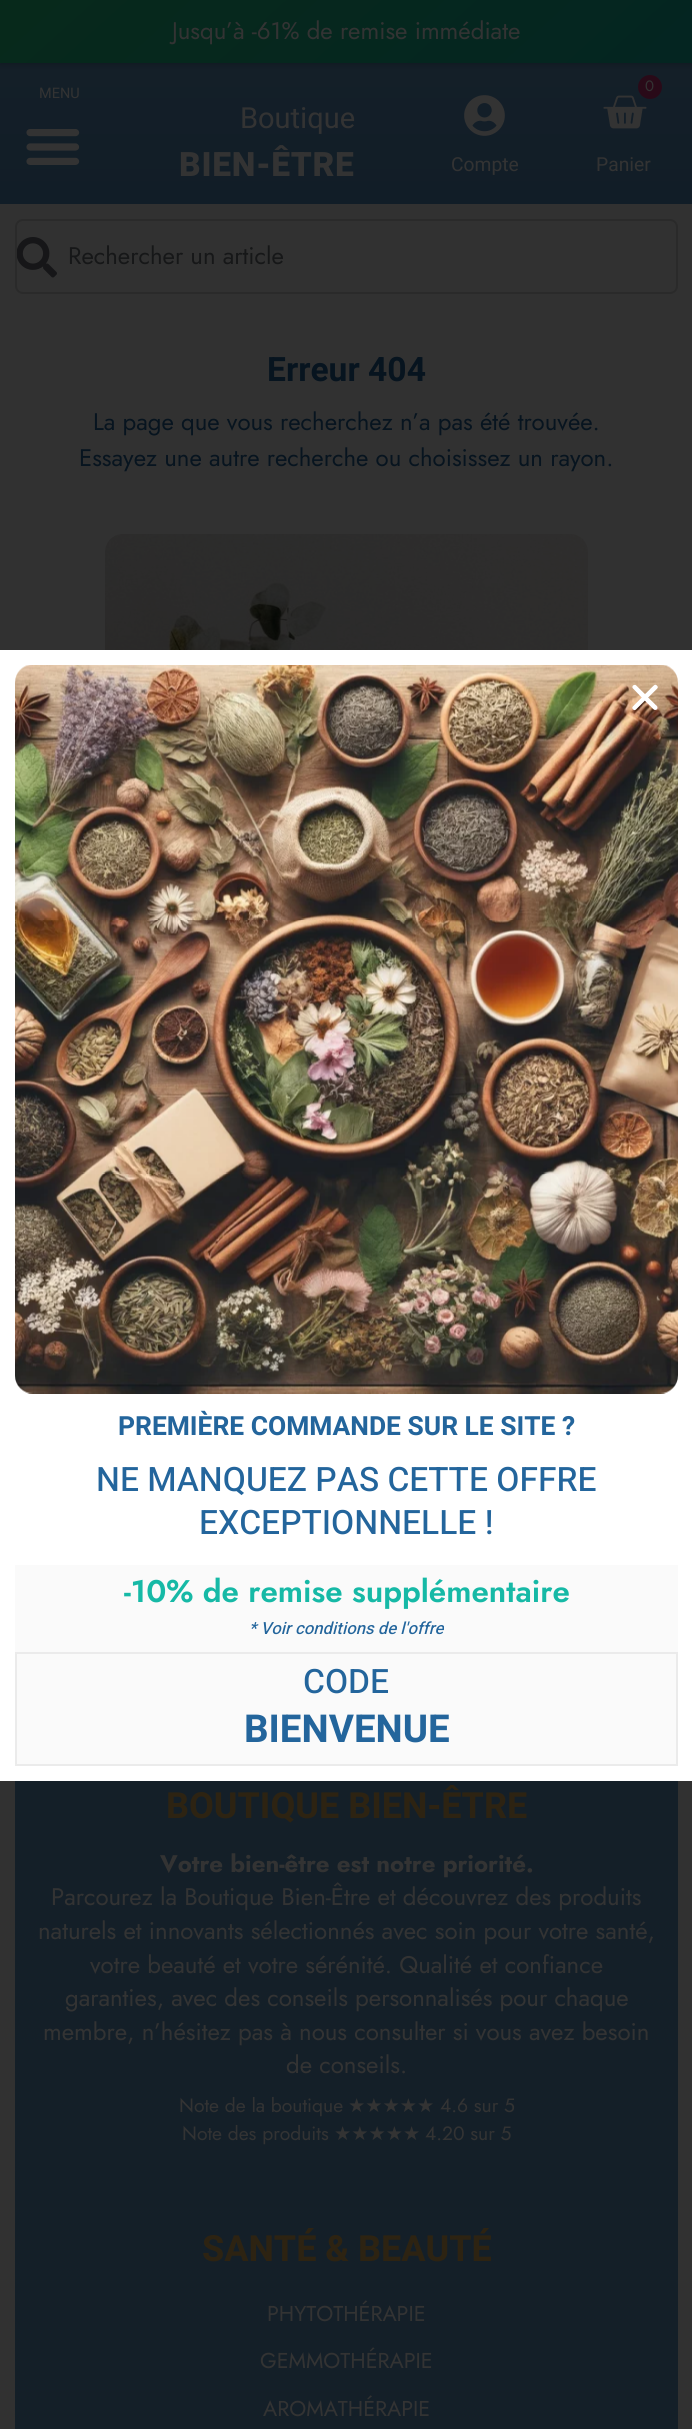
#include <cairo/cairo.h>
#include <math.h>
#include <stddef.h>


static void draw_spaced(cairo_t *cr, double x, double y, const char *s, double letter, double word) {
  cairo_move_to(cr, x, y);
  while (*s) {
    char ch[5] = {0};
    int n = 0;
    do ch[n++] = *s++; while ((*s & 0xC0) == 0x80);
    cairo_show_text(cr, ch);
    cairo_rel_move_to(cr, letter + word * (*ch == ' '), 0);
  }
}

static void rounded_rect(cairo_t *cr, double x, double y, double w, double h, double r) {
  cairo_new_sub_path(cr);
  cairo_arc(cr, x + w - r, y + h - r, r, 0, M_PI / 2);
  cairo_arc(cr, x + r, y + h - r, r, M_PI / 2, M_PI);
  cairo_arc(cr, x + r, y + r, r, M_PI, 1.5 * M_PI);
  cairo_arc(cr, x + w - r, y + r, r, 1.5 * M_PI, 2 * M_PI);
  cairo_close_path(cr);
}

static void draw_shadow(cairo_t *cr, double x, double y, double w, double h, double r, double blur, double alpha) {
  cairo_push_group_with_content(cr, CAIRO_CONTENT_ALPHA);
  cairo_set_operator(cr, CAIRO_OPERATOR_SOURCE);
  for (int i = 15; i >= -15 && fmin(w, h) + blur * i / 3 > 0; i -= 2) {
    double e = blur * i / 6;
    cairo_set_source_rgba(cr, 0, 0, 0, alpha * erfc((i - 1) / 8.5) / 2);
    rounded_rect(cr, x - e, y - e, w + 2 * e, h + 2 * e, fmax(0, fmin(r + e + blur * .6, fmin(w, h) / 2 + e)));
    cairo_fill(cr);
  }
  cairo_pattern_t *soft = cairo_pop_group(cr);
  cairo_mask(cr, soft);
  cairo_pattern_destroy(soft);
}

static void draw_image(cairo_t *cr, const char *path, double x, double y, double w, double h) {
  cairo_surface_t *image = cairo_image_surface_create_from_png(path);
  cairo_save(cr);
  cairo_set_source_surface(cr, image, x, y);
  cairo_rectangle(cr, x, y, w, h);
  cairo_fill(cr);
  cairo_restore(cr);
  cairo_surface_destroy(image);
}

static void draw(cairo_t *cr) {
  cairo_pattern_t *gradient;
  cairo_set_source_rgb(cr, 49 / 255.0, 49 / 255.0, 49 / 255.0);
  cairo_paint(cr);
  gradient = cairo_pattern_create_linear(347, 63, 347, 204);
  cairo_pattern_add_color_stop_rgba(gradient, 0, 20 / 255.0, 31 / 255.0, 40 / 255.0, 1);
  cairo_pattern_add_color_stop_rgba(gradient, 1, 17 / 255.0, 29 / 255.0, 39 / 255.0, 1);
  cairo_set_source(cr, gradient);
  cairo_pattern_destroy(gradient);
  cairo_rectangle(cr, 0, 63, 692, 141);
  cairo_fill(cr);
  draw_image(cr, "images/3.png", 603, 95, 44, 34);
  cairo_set_source_rgb(cr, 41 / 255.0, 10 / 255.0, 24 / 255.0);
  cairo_arc(cr, 650, 87, 12, 0, 2 * M_PI);
  cairo_fill(cr);
  cairo_set_source_rgb(cr, 0, 0, 0);
  draw_shadow(cr, 0, 0, 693, 63, 0, 4, 0.29);
  gradient = cairo_pattern_create_linear(176, -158, 517, 221);
  cairo_pattern_add_color_stop_rgba(gradient, 0, 7 / 255.0, 41 / 255.0, 27 / 255.0, 1);
  cairo_pattern_add_color_stop_rgba(gradient, 1, 4 / 255.0, 37 / 255.0, 33 / 255.0, 1);
  cairo_set_source(cr, gradient);
  cairo_pattern_destroy(gradient);
  cairo_rectangle(cr, 0, 0, 692, 63);
  cairo_fill(cr);
  draw_image(cr, "images/1.png", 26, 129, 54, 36);
  draw_image(cr, "images/2.png", 464, 95, 41, 41);
  rounded_rect(cr, 16, 220, 661, 73, 7);
  cairo_set_source_rgb(cr, 42 / 255.0, 42 / 255.0, 42 / 255.0);
  cairo_stroke(cr);
  draw_image(cr, "images/4.png", 17, 237, 40, 41);
  draw_image(cr, "images/5.png", 105, 534, 483, 116);
  cairo_set_source_rgb(cr, 1, 1, 1);
  cairo_rectangle(cr, 0, 650, 692, 1131);
  cairo_fill(cr);
  draw_image(cr, "images/7.png", 15, 665, 663, 729);
  draw_image(cr, "images/6.png", 632, 684, 26, 27);
  cairo_set_source_rgb(cr, 250 / 255.0, 250 / 255.0, 250 / 255.0);
  cairo_rectangle(cr, 15, 1565, 663, 199);
  cairo_fill(cr);
  cairo_rectangle(cr, 16, 1653, 661, 112);
  cairo_set_source_rgb(cr, 235 / 255.0, 235 / 255.0, 235 / 255.0);
  cairo_stroke(cr);
  cairo_set_source_rgb(cr, 20 / 255.0, 31 / 255.0, 40 / 255.0);
  cairo_rectangle(cr, 15, 1781, 663, 648);
  cairo_fill(cr);
  cairo_select_font_face(cr, "Jost", CAIRO_FONT_SLANT_NORMAL, CAIRO_FONT_WEIGHT_NORMAL);
  cairo_set_font_size(cr, 24);
  cairo_set_source_rgb(cr, 51 / 255.0, 51 / 255.0, 51 / 255.0);
  cairo_move_to(cr, 172, 39);
  cairo_show_text(cr, "Jusqu’à -61% de remise immédiate");
  cairo_select_font_face(cr, "Heebo", CAIRO_FONT_SLANT_NORMAL, CAIRO_FONT_WEIGHT_NORMAL);
  cairo_set_font_size(cr, 14.5);
  cairo_move_to(cr, 39, 98);
  cairo_show_text(cr, "MENU");
  cairo_set_font_size(cr, 19.25);
  cairo_move_to(cr, 451, 171);
  cairo_show_text(cr, "Compte");
  cairo_select_font_face(cr, "Jost", CAIRO_FONT_SLANT_NORMAL, CAIRO_FONT_WEIGHT_NORMAL);
  cairo_set_font_size(cr, 15);
  cairo_move_to(cr, 645, 91);
  cairo_show_text(cr, "0");
  cairo_select_font_face(cr, "Heebo", CAIRO_FONT_SLANT_NORMAL, CAIRO_FONT_WEIGHT_NORMAL);
  cairo_set_font_size(cr, 19.25);
  cairo_move_to(cr, 596, 171);
  cairo_show_text(cr, "Panier");
  cairo_set_font_size(cr, 29);
  cairo_move_to(cr, 240, 128);
  cairo_show_text(cr, "Boutique");
  cairo_select_font_face(cr, "Heebo ExtraBold", CAIRO_FONT_SLANT_NORMAL, CAIRO_FONT_WEIGHT_NORMAL);
  cairo_set_font_size(cr, 33.6);
  draw_spaced(cr, 179, 176, "BIEN-ÊTRE", 0.75, 0);
  cairo_select_font_face(cr, "Jost", CAIRO_FONT_SLANT_NORMAL, CAIRO_FONT_WEIGHT_NORMAL);
  cairo_set_font_size(cr, 24);
  cairo_set_source_rgb(cr, 22 / 255.0, 23 / 255.0, 24 / 255.0);
  cairo_move_to(cr, 68, 264);
  cairo_show_text(cr, "Rechercher un article");
  cairo_select_font_face(cr, "Heebo", CAIRO_FONT_SLANT_NORMAL, CAIRO_FONT_WEIGHT_BOLD);
  cairo_set_font_size(cr, 33.6);
  cairo_set_source_rgb(cr, 7 / 255.0, 20 / 255.0, 31 / 255.0);
  cairo_move_to(cr, 267, 381);
  cairo_show_text(cr, "Erreur 404");
  cairo_select_font_face(cr, "Jost", CAIRO_FONT_SLANT_NORMAL, CAIRO_FONT_WEIGHT_NORMAL);
  cairo_set_font_size(cr, 24);
  cairo_move_to(cr, 93, 430);
  cairo_show_text(cr, "La page que vous recherchez n’a pas été trouvée.");
  cairo_move_to(cr, 79, 466);
  cairo_show_text(cr, "Essayez une autre recherche ou choisissez un rayon.");
  cairo_select_font_face(cr, "Heebo", CAIRO_FONT_SLANT_NORMAL, CAIRO_FONT_WEIGHT_BOLD);
  cairo_set_font_size(cr, 26.4);
  cairo_set_source_rgb(cr, 35 / 255.0, 101 / 255.0, 156 / 255.0);
  cairo_move_to(cr, 118, 1435);
  cairo_show_text(cr, "PREMIÈRE COMMANDE SUR LE SITE ?");
  cairo_select_font_face(cr, "Heebo Medium", CAIRO_FONT_SLANT_NORMAL, CAIRO_FONT_WEIGHT_NORMAL);
  cairo_set_font_size(cr, 33.6);
  cairo_move_to(cr, 96, 1491);
  cairo_show_text(cr, "NE MANQUEZ PAS CETTE OFFRE");
  cairo_move_to(cr, 199, 1534);
  cairo_show_text(cr, "EXCEPTIONNELLE !");
  cairo_select_font_face(cr, "Jost SemiBold", CAIRO_FONT_SLANT_NORMAL, CAIRO_FONT_WEIGHT_NORMAL);
  cairo_set_font_size(cr, 31.25);
  cairo_set_source_rgb(cr, 22 / 255.0, 185 / 255.0, 166 / 255.0);
  cairo_move_to(cr, 124, 1602);
  cairo_show_text(cr, "-10% de remise supplémentaire");
  cairo_select_font_face(cr, "Heebo Medium", CAIRO_FONT_SLANT_ITALIC, CAIRO_FONT_WEIGHT_NORMAL);
  cairo_set_font_size(cr, 16.75);
  cairo_set_source_rgb(cr, 35 / 255.0, 101 / 255.0, 156 / 255.0);
  cairo_move_to(cr, 249, 1634);
  cairo_show_text(cr, "* Voir conditions de l'offre");
  cairo_select_font_face(cr, "Heebo Medium", CAIRO_FONT_SLANT_NORMAL, CAIRO_FONT_WEIGHT_NORMAL);
  cairo_set_font_size(cr, 33.6);
  cairo_move_to(cr, 303, 1693);
  cairo_show_text(cr, "CODE");
  cairo_select_font_face(cr, "Heebo", CAIRO_FONT_SLANT_NORMAL, CAIRO_FONT_WEIGHT_BOLD);
  cairo_set_font_size(cr, 38.5);
  cairo_move_to(cr, 244, 1742);
  cairo_show_text(cr, "BIENVENUE");
  cairo_set_font_size(cr, 36);
  cairo_set_source_rgb(cr, 45 / 255.0, 35 / 255.0, 18 / 255.0);
  cairo_move_to(cr, 166, 1818);
  cairo_show_text(cr, "BOUTIQUE BIEN-ÊTRE");
  cairo_select_font_face(cr, "Jost", CAIRO_FONT_SLANT_NORMAL, CAIRO_FONT_WEIGHT_BOLD);
  cairo_set_font_size(cr, 24);
  cairo_set_source_rgb(cr, 51 / 255.0, 51 / 255.0, 51 / 255.0);
  cairo_move_to(cr, 160, 1872);
  cairo_show_text(cr, "Votre bien-être est notre priorité.");
  cairo_select_font_face(cr, "Jost", CAIRO_FONT_SLANT_NORMAL, CAIRO_FONT_WEIGHT_NORMAL);
  cairo_move_to(cr, 51, 1905);
  cairo_show_text(cr, "Parcourez la Boutique Bien-Être et découvrez des produits");
  cairo_move_to(cr, 38, 1939);
  cairo_show_text(cr, "naturels et innovants sélectionnés avec soin pour votre santé,");
  cairo_move_to(cr, 90, 1973);
  cairo_show_text(cr, "votre beauté et votre sérénité. Qualité et confiance");
  cairo_move_to(cr, 65, 2006);
  cairo_show_text(cr, "garanties, avec des conseils personnalisés pour chaque");
  cairo_move_to(cr, 43, 2040);
  cairo_show_text(cr, "membre, n’hésitez pas à nous consulter si vous avez besoin");
  cairo_move_to(cr, 286, 2073);
  cairo_show_text(cr, "de conseils.");
  cairo_set_font_size(cr, 19.25);
  cairo_move_to(cr, 179, 2112);
  cairo_show_text(cr, "Note de la boutique");
  cairo_select_font_face(cr, "DejaVu Sans", CAIRO_FONT_SLANT_NORMAL, CAIRO_FONT_WEIGHT_NORMAL);
  cairo_move_to(cr, 348, 2112);
  cairo_show_text(cr, "★★★★★");
  cairo_select_font_face(cr, "Jost", CAIRO_FONT_SLANT_NORMAL, CAIRO_FONT_WEIGHT_NORMAL);
  cairo_move_to(cr, 440, 2112);
  cairo_show_text(cr, "4.6 sur 5");
  cairo_move_to(cr, 182, 2140);
  cairo_show_text(cr, "Note des produits");
  cairo_select_font_face(cr, "DejaVu Sans", CAIRO_FONT_SLANT_NORMAL, CAIRO_FONT_WEIGHT_NORMAL);
  cairo_move_to(cr, 334, 2140);
  cairo_show_text(cr, "★★★★★");
  cairo_select_font_face(cr, "Jost", CAIRO_FONT_SLANT_NORMAL, CAIRO_FONT_WEIGHT_NORMAL);
  cairo_move_to(cr, 425, 2140);
  cairo_show_text(cr, "4.20 sur 5");
  cairo_select_font_face(cr, "Heebo", CAIRO_FONT_SLANT_NORMAL, CAIRO_FONT_WEIGHT_BOLD);
  cairo_set_font_size(cr, 36);
  cairo_set_source_rgb(cr, 45 / 255.0, 35 / 255.0, 18 / 255.0);
  cairo_move_to(cr, 202, 2261);
  cairo_show_text(cr, "SANTÉ & BEAUTÉ");
  cairo_select_font_face(cr, "Jost", CAIRO_FONT_SLANT_NORMAL, CAIRO_FONT_WEIGHT_NORMAL);
  cairo_set_font_size(cr, 21.5);
  cairo_set_source_rgb(cr, 51 / 255.0, 51 / 255.0, 51 / 255.0);
  cairo_move_to(cr, 267, 2321);
  cairo_show_text(cr, "PHYTOTHÉRAPIE");
  cairo_move_to(cr, 260, 2368);
  cairo_show_text(cr, "GEMMOTHÉRAPIE");
  cairo_move_to(cr, 263, 2416);
  cairo_show_text(cr, "AROMATHÉRAPIE");
}

int main(void) {
  cairo_surface_t *surface = cairo_image_surface_create(CAIRO_FORMAT_RGB24, 692, 2429);
  cairo_t *cr = cairo_create(surface);
  cairo_font_options_t *options = cairo_font_options_create();
  cairo_font_options_set_hint_metrics(options, CAIRO_HINT_METRICS_OFF);
  cairo_font_options_set_hint_style(options, CAIRO_HINT_STYLE_NONE);
  cairo_set_font_options(cr, options);
  cairo_set_miter_limit(cr, 4);
  draw(cr);
  cairo_surface_write_to_png(surface, "out.png");
  cairo_font_options_destroy(options);
  cairo_destroy(cr);
  cairo_surface_destroy(surface);
  return 0;
}
